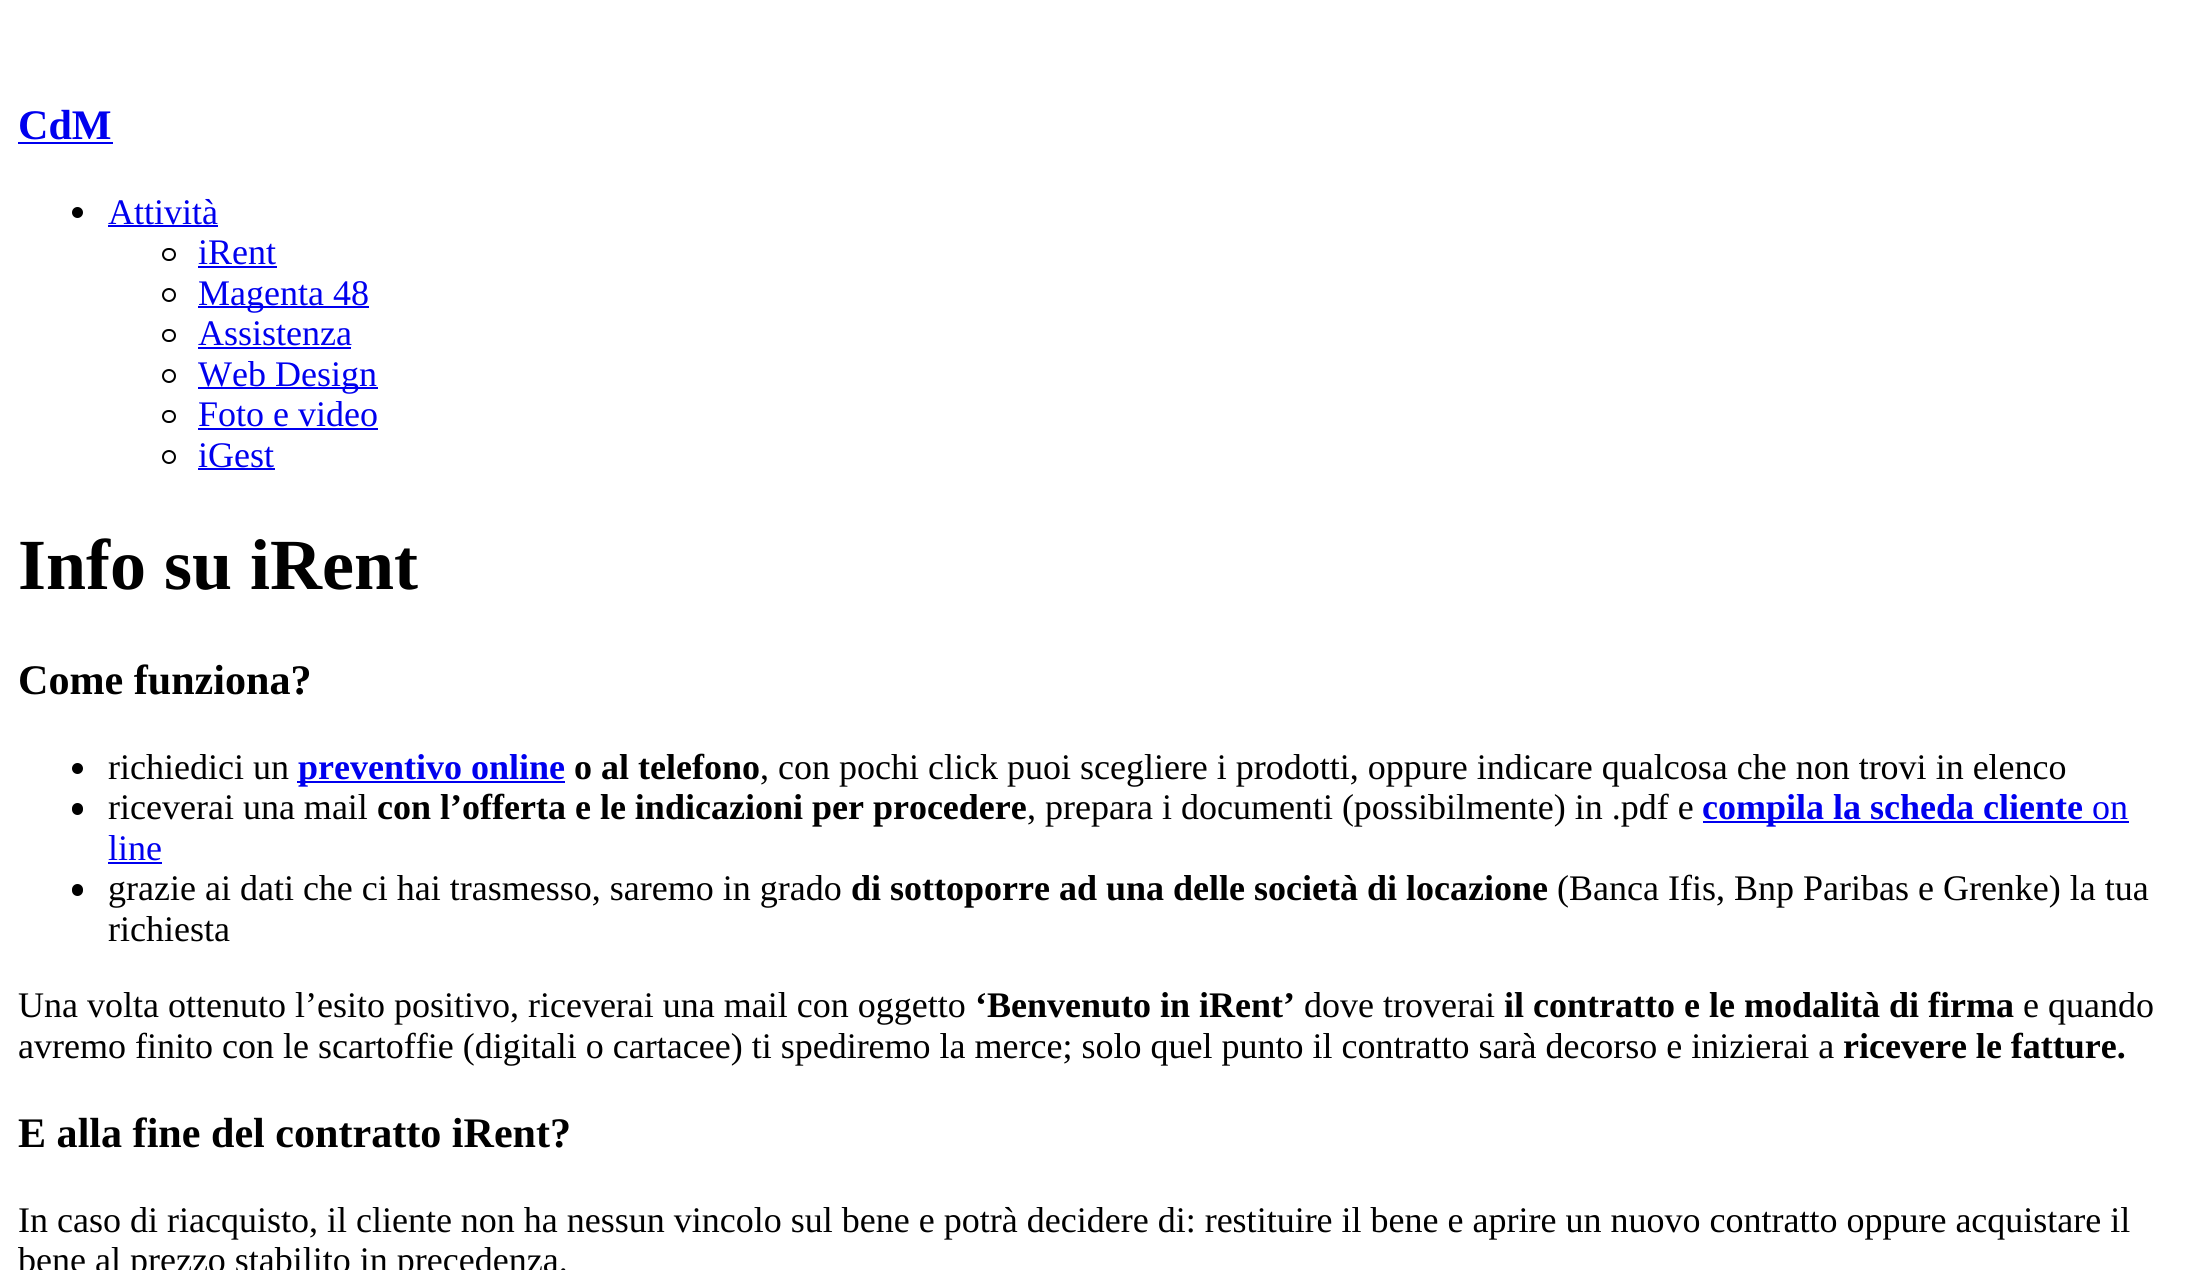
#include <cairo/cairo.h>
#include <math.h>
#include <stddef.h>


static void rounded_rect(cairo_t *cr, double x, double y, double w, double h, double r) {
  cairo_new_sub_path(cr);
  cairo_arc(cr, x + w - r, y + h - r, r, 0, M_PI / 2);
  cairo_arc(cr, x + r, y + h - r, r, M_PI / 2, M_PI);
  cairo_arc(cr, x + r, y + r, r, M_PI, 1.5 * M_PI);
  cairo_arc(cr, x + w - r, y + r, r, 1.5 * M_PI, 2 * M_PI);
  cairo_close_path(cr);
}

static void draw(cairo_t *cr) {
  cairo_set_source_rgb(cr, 1, 1, 1);
  cairo_paint(cr);
  cairo_set_source_rgb(cr, 0, 0, 238 / 255.0);
  cairo_rectangle(cr, 18, 142, 95, 2);
  cairo_fill(cr);
  cairo_set_source_rgb(cr, 0, 0, 0);
  cairo_arc(cr, 77.5, 212.5, 5.5, 0, 2 * M_PI);
  cairo_fill(cr);
  cairo_set_source_rgb(cr, 0, 0, 238 / 255.0);
  cairo_rectangle(cr, 108, 225, 110, 2);
  cairo_fill(cr);
  rounded_rect(cr, 163, 249, 12, 11, 5.5);
  cairo_set_source_rgb(cr, 0, 0, 0);
  cairo_stroke(cr);
  cairo_set_source_rgb(cr, 0, 0, 238 / 255.0);
  cairo_rectangle(cr, 198, 266, 79, 2);
  cairo_fill(cr);
  cairo_arc(cr, 169, 295, 6, 0, 2 * M_PI);
  cairo_set_source_rgb(cr, 0, 0, 0);
  cairo_stroke(cr);
  cairo_set_source_rgb(cr, 0, 0, 238 / 255.0);
  cairo_rectangle(cr, 198, 306, 171, 2);
  cairo_fill(cr);
  rounded_rect(cr, 163, 330, 12, 11, 5.5);
  cairo_set_source_rgb(cr, 0, 0, 0);
  cairo_stroke(cr);
  cairo_set_source_rgb(cr, 0, 0, 238 / 255.0);
  cairo_rectangle(cr, 198, 347, 153, 2);
  cairo_fill(cr);
  cairo_arc(cr, 169, 376, 6, 0, 2 * M_PI);
  cairo_set_source_rgb(cr, 0, 0, 0);
  cairo_stroke(cr);
  cairo_set_source_rgb(cr, 0, 0, 238 / 255.0);
  cairo_rectangle(cr, 198, 387, 180, 2);
  cairo_fill(cr);
  rounded_rect(cr, 163, 411, 12, 11, 5.5);
  cairo_set_source_rgb(cr, 0, 0, 0);
  cairo_stroke(cr);
  cairo_set_source_rgb(cr, 0, 0, 238 / 255.0);
  cairo_rectangle(cr, 198, 428, 180, 2);
  cairo_fill(cr);
  cairo_arc(cr, 169, 457, 6, 0, 2 * M_PI);
  cairo_set_source_rgb(cr, 0, 0, 0);
  cairo_stroke(cr);
  cairo_set_source_rgb(cr, 0, 0, 238 / 255.0);
  cairo_rectangle(cr, 198, 468, 77, 2);
  cairo_fill(cr);
  cairo_set_source_rgb(cr, 0, 0, 0);
  cairo_arc(cr, 77.5, 768.5, 5.5, 0, 2 * M_PI);
  cairo_fill(cr);
  cairo_set_source_rgb(cr, 0, 0, 238 / 255.0);
  cairo_rectangle(cr, 297, 781, 268, 2);
  cairo_fill(cr);
  cairo_set_source_rgb(cr, 0, 0, 0);
  rounded_rect(cr, 72, 803, 11, 12, 5.5);
  cairo_fill(cr);
  cairo_set_source_rgb(cr, 0, 0, 238 / 255.0);
  cairo_rectangle(cr, 1703, 821, 426, 2);
  cairo_fill(cr);
  cairo_rectangle(cr, 108, 862, 54, 2);
  cairo_fill(cr);
  cairo_set_source_rgb(cr, 0, 0, 0);
  rounded_rect(cr, 72, 884, 11, 12, 5.5);
  cairo_fill(cr);
  cairo_select_font_face(cr, "Liberation Serif", CAIRO_FONT_SLANT_NORMAL, CAIRO_FONT_WEIGHT_BOLD);
  cairo_set_font_size(cr, 42.1);
  cairo_set_source_rgb(cr, 0, 0, 238 / 255.0);
  cairo_move_to(cr, 18, 139);
  cairo_show_text(cr, "CdM");
  cairo_select_font_face(cr, "Liberation Serif", CAIRO_FONT_SLANT_NORMAL, CAIRO_FONT_WEIGHT_NORMAL);
  cairo_set_font_size(cr, 36);
  cairo_move_to(cr, 108, 224);
  cairo_show_text(cr, "Attività");
  cairo_move_to(cr, 198, 264);
  cairo_show_text(cr, "iRent");
  cairo_move_to(cr, 198, 305);
  cairo_show_text(cr, "Magenta 48");
  cairo_move_to(cr, 198, 345);
  cairo_show_text(cr, "Assistenza");
  cairo_move_to(cr, 198, 386);
  cairo_show_text(cr, "Web Design");
  cairo_move_to(cr, 198, 426);
  cairo_show_text(cr, "Foto e video");
  cairo_move_to(cr, 198, 467);
  cairo_show_text(cr, "iGest");
  cairo_select_font_face(cr, "Liberation Serif", CAIRO_FONT_SLANT_NORMAL, CAIRO_FONT_WEIGHT_BOLD);
  cairo_set_font_size(cr, 72);
  cairo_set_source_rgb(cr, 0, 0, 0);
  cairo_move_to(cr, 18, 589);
  cairo_show_text(cr, "Info su iRent");
  cairo_set_font_size(cr, 42.1);
  cairo_move_to(cr, 18, 694);
  cairo_show_text(cr, "Come funziona?");
  cairo_select_font_face(cr, "Liberation Serif", CAIRO_FONT_SLANT_NORMAL, CAIRO_FONT_WEIGHT_NORMAL);
  cairo_set_font_size(cr, 36);
  cairo_move_to(cr, 108, 779);
  cairo_show_text(cr, "richiedici un");
  cairo_select_font_face(cr, "Liberation Serif", CAIRO_FONT_SLANT_NORMAL, CAIRO_FONT_WEIGHT_BOLD);
  cairo_set_source_rgb(cr, 0, 0, 238 / 255.0);
  cairo_move_to(cr, 298, 779);
  cairo_show_text(cr, "preventivo online");
  cairo_set_source_rgb(cr, 0, 0, 0);
  cairo_move_to(cr, 574, 779);
  cairo_show_text(cr, "o al telefono");
  cairo_select_font_face(cr, "Liberation Serif", CAIRO_FONT_SLANT_NORMAL, CAIRO_FONT_WEIGHT_NORMAL);
  cairo_move_to(cr, 760, 779);
  cairo_show_text(cr, ", con pochi click puoi scegliere i prodotti, oppure indicare qualcosa che non trovi in elenco");
  cairo_move_to(cr, 108, 819);
  cairo_show_text(cr, "riceverai una mail");
  cairo_select_font_face(cr, "Liberation Serif", CAIRO_FONT_SLANT_NORMAL, CAIRO_FONT_WEIGHT_BOLD);
  cairo_move_to(cr, 377, 819);
  cairo_show_text(cr, "con l’offerta e le indicazioni per procedere");
  cairo_select_font_face(cr, "Liberation Serif", CAIRO_FONT_SLANT_NORMAL, CAIRO_FONT_WEIGHT_NORMAL);
  cairo_move_to(cr, 1027, 819);
  cairo_show_text(cr, ", prepara i documenti (possibilmente) in .pdf e");
  cairo_select_font_face(cr, "Liberation Serif", CAIRO_FONT_SLANT_NORMAL, CAIRO_FONT_WEIGHT_BOLD);
  cairo_set_source_rgb(cr, 0, 0, 238 / 255.0);
  cairo_move_to(cr, 1702, 819);
  cairo_show_text(cr, "compila la scheda cliente");
  cairo_select_font_face(cr, "Liberation Serif", CAIRO_FONT_SLANT_NORMAL, CAIRO_FONT_WEIGHT_NORMAL);
  cairo_move_to(cr, 2092, 819);
  cairo_show_text(cr, "on");
  cairo_move_to(cr, 108, 860);
  cairo_show_text(cr, "line");
  cairo_set_source_rgb(cr, 0, 0, 0);
  cairo_move_to(cr, 108, 900);
  cairo_show_text(cr, "grazie ai dati che ci hai trasmesso, saremo in grado");
  cairo_select_font_face(cr, "Liberation Serif", CAIRO_FONT_SLANT_NORMAL, CAIRO_FONT_WEIGHT_BOLD);
  cairo_move_to(cr, 851, 900);
  cairo_show_text(cr, "di sottoporre ad una delle società di locazione");
  cairo_select_font_face(cr, "Liberation Serif", CAIRO_FONT_SLANT_NORMAL, CAIRO_FONT_WEIGHT_NORMAL);
  cairo_move_to(cr, 1557, 900);
  cairo_show_text(cr, "(Banca Ifis, Bnp Paribas e Grenke) la tua");
  cairo_move_to(cr, 108, 941);
  cairo_show_text(cr, "richiesta");
  cairo_move_to(cr, 18, 1017);
  cairo_show_text(cr, "Una volta ottenuto l’esito positivo, riceverai una mail con oggetto");
  cairo_select_font_face(cr, "Liberation Serif", CAIRO_FONT_SLANT_NORMAL, CAIRO_FONT_WEIGHT_BOLD);
  cairo_move_to(cr, 975, 1017);
  cairo_show_text(cr, "‘Benvenuto in iRent’");
  cairo_select_font_face(cr, "Liberation Serif", CAIRO_FONT_SLANT_NORMAL, CAIRO_FONT_WEIGHT_NORMAL);
  cairo_move_to(cr, 1304, 1017);
  cairo_show_text(cr, "dove troverai");
  cairo_select_font_face(cr, "Liberation Serif", CAIRO_FONT_SLANT_NORMAL, CAIRO_FONT_WEIGHT_BOLD);
  cairo_move_to(cr, 1504, 1017);
  cairo_show_text(cr, "il contratto e le modalità di firma");
  cairo_select_font_face(cr, "Liberation Serif", CAIRO_FONT_SLANT_NORMAL, CAIRO_FONT_WEIGHT_NORMAL);
  cairo_move_to(cr, 2023, 1017);
  cairo_show_text(cr, "e quando");
  cairo_move_to(cr, 18, 1058);
  cairo_show_text(cr, "avremo finito con le scartoffie (digitali o cartacee) ti spediremo la merce; solo quel punto il contratto sarà decorso e inizierai a");
  cairo_select_font_face(cr, "Liberation Serif", CAIRO_FONT_SLANT_NORMAL, CAIRO_FONT_WEIGHT_BOLD);
  cairo_move_to(cr, 1843, 1058);
  cairo_show_text(cr, "ricevere le fatture.");
  cairo_set_font_size(cr, 42.1);
  cairo_move_to(cr, 18, 1147);
  cairo_show_text(cr, "E alla fine del contratto iRent?");
  cairo_select_font_face(cr, "Liberation Serif", CAIRO_FONT_SLANT_NORMAL, CAIRO_FONT_WEIGHT_NORMAL);
  cairo_set_font_size(cr, 36);
  cairo_move_to(cr, 18, 1232);
  cairo_show_text(cr, "In caso di riacquisto, il cliente non ha nessun vincolo sul bene e potrà decidere di: restituire il bene e aprire un nuovo contratto oppure acquistare il");
  cairo_move_to(cr, 18, 1272);
  cairo_show_text(cr, "bene al prezzo stabilito in precedenza.");
}

int main(void) {
  cairo_surface_t *surface = cairo_image_surface_create(CAIRO_FORMAT_RGB24, 2187, 1270);
  cairo_t *cr = cairo_create(surface);
  cairo_font_options_t *options = cairo_font_options_create();
  cairo_font_options_set_hint_metrics(options, CAIRO_HINT_METRICS_OFF);
  cairo_font_options_set_hint_style(options, CAIRO_HINT_STYLE_NONE);
  cairo_set_font_options(cr, options);
  cairo_set_miter_limit(cr, 4);
  draw(cr);
  cairo_surface_write_to_png(surface, "out.png");
  cairo_font_options_destroy(options);
  cairo_destroy(cr);
  cairo_surface_destroy(surface);
  return 0;
}
